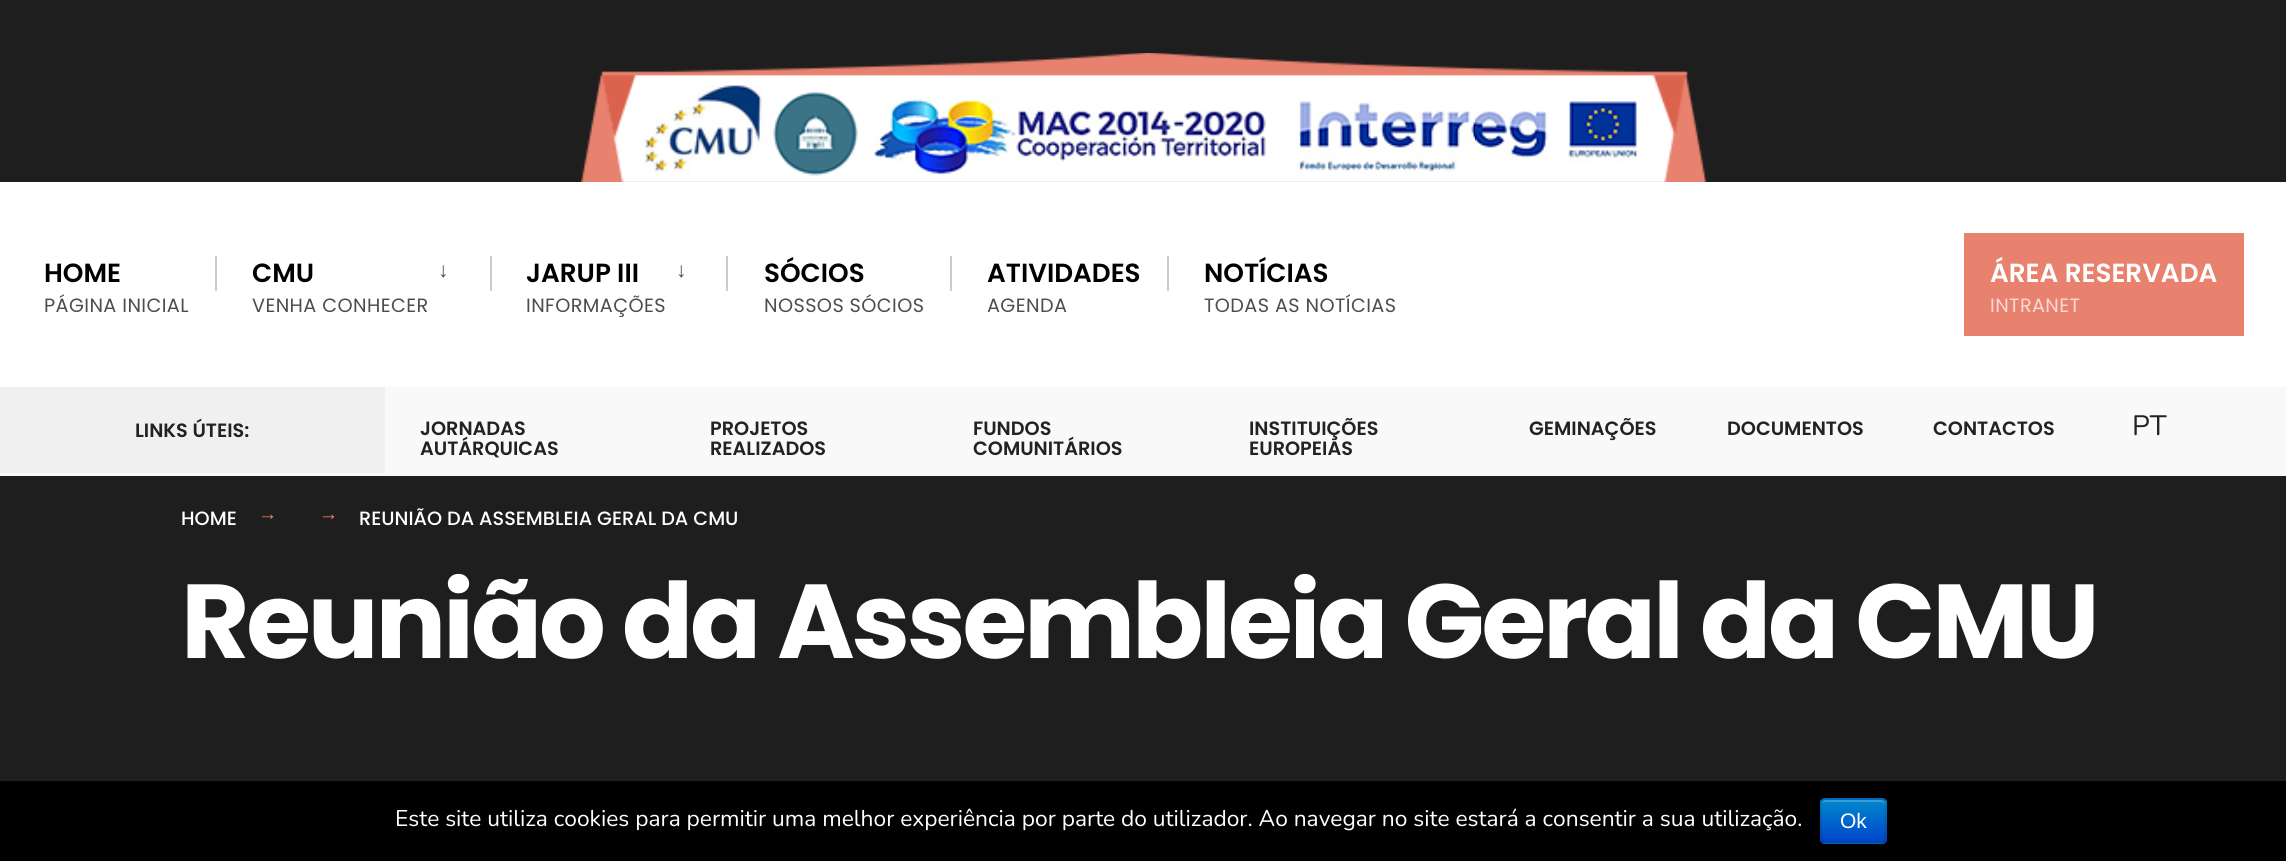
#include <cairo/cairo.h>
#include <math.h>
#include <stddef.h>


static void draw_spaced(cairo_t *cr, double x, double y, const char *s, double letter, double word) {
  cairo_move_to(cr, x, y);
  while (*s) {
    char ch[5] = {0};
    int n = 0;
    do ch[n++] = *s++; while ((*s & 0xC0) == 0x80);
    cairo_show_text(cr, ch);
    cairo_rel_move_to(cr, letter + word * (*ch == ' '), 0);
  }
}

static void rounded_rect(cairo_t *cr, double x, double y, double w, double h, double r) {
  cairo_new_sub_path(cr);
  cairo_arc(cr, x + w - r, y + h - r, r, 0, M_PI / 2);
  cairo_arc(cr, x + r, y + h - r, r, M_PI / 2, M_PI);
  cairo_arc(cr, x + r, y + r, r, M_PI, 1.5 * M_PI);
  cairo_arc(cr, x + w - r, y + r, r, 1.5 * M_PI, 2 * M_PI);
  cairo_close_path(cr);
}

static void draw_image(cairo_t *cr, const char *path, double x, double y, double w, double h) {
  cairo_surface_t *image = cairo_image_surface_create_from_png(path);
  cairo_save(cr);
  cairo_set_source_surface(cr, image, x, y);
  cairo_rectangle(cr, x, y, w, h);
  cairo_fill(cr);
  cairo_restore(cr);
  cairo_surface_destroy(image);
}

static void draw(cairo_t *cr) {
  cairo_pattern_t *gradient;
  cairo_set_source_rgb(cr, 30 / 255.0, 30 / 255.0, 30 / 255.0);
  cairo_paint(cr);
  draw_image(cr, "images/1.png", 581, 53, 1125, 129);
  cairo_set_source_rgb(cr, 1, 1, 1);
  cairo_rectangle(cr, 0, 182, 2286, 205);
  cairo_fill(cr);
  cairo_set_source_rgb(cr, 204 / 255.0, 204 / 255.0, 204 / 255.0);
  cairo_rectangle(cr, 215, 256, 2, 35);
  cairo_fill(cr);
  cairo_rectangle(cr, 490, 256, 2, 35);
  cairo_fill(cr);
  cairo_rectangle(cr, 726, 256, 2, 35);
  cairo_fill(cr);
  cairo_rectangle(cr, 950, 256, 2, 35);
  cairo_fill(cr);
  cairo_rectangle(cr, 1167, 256, 2, 35);
  cairo_fill(cr);
  cairo_set_source_rgb(cr, 232 / 255.0, 129 / 255.0, 110 / 255.0);
  cairo_rectangle(cr, 1964, 233, 280, 103);
  cairo_fill(cr);
  cairo_set_source_rgb(cr, 249 / 255.0, 249 / 255.0, 249 / 255.0);
  cairo_rectangle(cr, 0, 387, 2286, 89);
  cairo_fill(cr);
  cairo_set_source_rgb(cr, 240 / 255.0, 240 / 255.0, 240 / 255.0);
  cairo_rectangle(cr, 0, 387, 385, 86);
  cairo_fill(cr);
  cairo_set_source_rgb(cr, 0, 0, 0);
  cairo_rectangle(cr, 0, 781, 2286, 80);
  cairo_fill(cr);
  cairo_set_source_rgb(cr, 0, 109 / 255.0, 204 / 255.0);
  rounded_rect(cr, 1820, 798, 67, 46, 5);
  cairo_fill(cr);
  cairo_save(cr);
  rounded_rect(cr, 1820, 798, 67, 46, 5);
  cairo_clip(cr);
  gradient = cairo_pattern_create_linear(1853, 800, 1853, 842);
  cairo_pattern_add_color_stop_rgba(gradient, 0, 0, 136 / 255.0, 204 / 255.0, 1);
  cairo_pattern_add_color_stop_rgba(gradient, 1, 0, 68 / 255.0, 204 / 255.0, 1);
  cairo_set_source(cr, gradient);
  cairo_pattern_destroy(gradient);
  cairo_rectangle(cr, 1820, 800, 67, 42);
  cairo_fill(cr);
  cairo_restore(cr);
  cairo_set_source_rgba(cr, 1, 1, 1, 0.2);
  cairo_new_path(cr);
  cairo_move_to(cr, 1825, 802);
  cairo_line_to(cr, 1881, 802);
  cairo_curve_to(cr, 1883, 802, 1885, 803, 1885, 805);
  cairo_curve_to(cr, 1885, 798, 1877, 800, 1872, 800);
  cairo_line_to(cr, 1835, 800);
  cairo_curve_to(cr, 1830, 800, 1822, 798, 1822, 805);
  cairo_curve_to(cr, 1822, 803, 1823, 802, 1825, 802);
  cairo_close_path(cr);
  cairo_fill(cr);
  cairo_new_path(cr);
  cairo_move_to(cr, 1884.5, 841.5);
  cairo_curve_to(cr, 1883.5, 842, 1882.5, 842.5, 1881, 842.5);
  cairo_line_to(cr, 1825, 842.5);
  cairo_curve_to(cr, 1824, 842.5, 1823, 842, 1822, 841.5);
  cairo_set_source_rgba(cr, 0, 0, 0, 0.25);
  cairo_set_line_width(cr, 1.8);
  cairo_stroke(cr);
  cairo_new_path(cr);
  cairo_move_to(cr, 1822, 841.5);
  cairo_curve_to(cr, 1821.5, 840.5, 1821, 839.5, 1821, 838);
  cairo_line_to(cr, 1821, 803);
  cairo_curve_to(cr, 1821, 802, 1821.5, 801, 1822, 800);
  cairo_curve_to(cr, 1823, 799.5, 1824, 799, 1825, 799);
  cairo_line_to(cr, 1881, 799);
  cairo_curve_to(cr, 1882.5, 799, 1883.5, 799.5, 1884.5, 800);
  cairo_curve_to(cr, 1885, 801, 1885.5, 802, 1885.5, 803);
  cairo_line_to(cr, 1885.5, 838);
  cairo_curve_to(cr, 1885.5, 839.5, 1885, 840.5, 1884.5, 841.5);
  cairo_set_source_rgba(cr, 0, 0, 0, 0.1);
  cairo_stroke(cr);
  cairo_select_font_face(cr, "Poppins SemiBold", CAIRO_FONT_SLANT_NORMAL, CAIRO_FONT_WEIGHT_NORMAL);
  cairo_set_font_size(cr, 26.25);
  cairo_set_source_rgb(cr, 0, 0, 0);
  cairo_move_to(cr, 44, 282);
  cairo_show_text(cr, "HOME");
  cairo_select_font_face(cr, "Poppins", CAIRO_FONT_SLANT_NORMAL, CAIRO_FONT_WEIGHT_NORMAL);
  cairo_set_font_size(cr, 19.25);
  cairo_set_source_rgb(cr, 77 / 255.0, 77 / 255.0, 77 / 255.0);
  draw_spaced(cr, 44, 312, "PÁGINA INICIAL", 0.4, 0);
  cairo_select_font_face(cr, "Poppins SemiBold", CAIRO_FONT_SLANT_NORMAL, CAIRO_FONT_WEIGHT_NORMAL);
  cairo_set_font_size(cr, 26.25);
  cairo_set_source_rgb(cr, 0, 0, 0);
  cairo_move_to(cr, 252, 282);
  cairo_show_text(cr, "CMU");
  cairo_select_font_face(cr, "Liberation Sans", CAIRO_FONT_SLANT_NORMAL, CAIRO_FONT_WEIGHT_NORMAL);
  cairo_set_font_size(cr, 21);
  cairo_set_source_rgb(cr, 77 / 255.0, 77 / 255.0, 77 / 255.0);
  cairo_move_to(cr, 438, 277);
  cairo_show_text(cr, "↓");
  cairo_select_font_face(cr, "Poppins", CAIRO_FONT_SLANT_NORMAL, CAIRO_FONT_WEIGHT_NORMAL);
  cairo_set_font_size(cr, 19.25);
  draw_spaced(cr, 252, 312, "VENHA CONHECER", 0.4, 0);
  cairo_select_font_face(cr, "Poppins SemiBold", CAIRO_FONT_SLANT_NORMAL, CAIRO_FONT_WEIGHT_NORMAL);
  cairo_set_font_size(cr, 26.25);
  cairo_set_source_rgb(cr, 0, 0, 0);
  cairo_move_to(cr, 526, 282);
  cairo_show_text(cr, "JARUP III");
  cairo_select_font_face(cr, "Liberation Sans", CAIRO_FONT_SLANT_NORMAL, CAIRO_FONT_WEIGHT_NORMAL);
  cairo_set_font_size(cr, 21);
  cairo_set_source_rgb(cr, 77 / 255.0, 77 / 255.0, 77 / 255.0);
  cairo_move_to(cr, 676, 277);
  cairo_show_text(cr, "↓");
  cairo_select_font_face(cr, "Poppins", CAIRO_FONT_SLANT_NORMAL, CAIRO_FONT_WEIGHT_NORMAL);
  cairo_set_font_size(cr, 19.25);
  draw_spaced(cr, 526, 312, "INFORMAÇÕES", 0.4, 0);
  cairo_select_font_face(cr, "Poppins SemiBold", CAIRO_FONT_SLANT_NORMAL, CAIRO_FONT_WEIGHT_NORMAL);
  cairo_set_font_size(cr, 26.25);
  cairo_set_source_rgb(cr, 0, 0, 0);
  cairo_move_to(cr, 764, 282);
  cairo_show_text(cr, "SÓCIOS");
  cairo_select_font_face(cr, "Poppins", CAIRO_FONT_SLANT_NORMAL, CAIRO_FONT_WEIGHT_NORMAL);
  cairo_set_font_size(cr, 19.25);
  cairo_set_source_rgb(cr, 77 / 255.0, 77 / 255.0, 77 / 255.0);
  draw_spaced(cr, 764, 312, "NOSSOS SÓCIOS", 0.4, 0);
  cairo_select_font_face(cr, "Poppins SemiBold", CAIRO_FONT_SLANT_NORMAL, CAIRO_FONT_WEIGHT_NORMAL);
  cairo_set_font_size(cr, 26.25);
  cairo_set_source_rgb(cr, 0, 0, 0);
  cairo_move_to(cr, 987, 282);
  cairo_show_text(cr, "ATIVIDADES");
  cairo_select_font_face(cr, "Poppins", CAIRO_FONT_SLANT_NORMAL, CAIRO_FONT_WEIGHT_NORMAL);
  cairo_set_font_size(cr, 19.25);
  cairo_set_source_rgb(cr, 77 / 255.0, 77 / 255.0, 77 / 255.0);
  draw_spaced(cr, 987, 312, "AGENDA", 0.4, 0);
  cairo_select_font_face(cr, "Poppins SemiBold", CAIRO_FONT_SLANT_NORMAL, CAIRO_FONT_WEIGHT_NORMAL);
  cairo_set_font_size(cr, 26.25);
  cairo_set_source_rgb(cr, 0, 0, 0);
  cairo_move_to(cr, 1204, 282);
  cairo_show_text(cr, "NOTÍCIAS");
  cairo_select_font_face(cr, "Poppins", CAIRO_FONT_SLANT_NORMAL, CAIRO_FONT_WEIGHT_NORMAL);
  cairo_set_font_size(cr, 19.25);
  cairo_set_source_rgb(cr, 77 / 255.0, 77 / 255.0, 77 / 255.0);
  draw_spaced(cr, 1204, 312, "TODAS AS NOTÍCIAS", 0.4, 0);
  cairo_select_font_face(cr, "Poppins SemiBold", CAIRO_FONT_SLANT_NORMAL, CAIRO_FONT_WEIGHT_NORMAL);
  cairo_set_font_size(cr, 26.25);
  cairo_set_source_rgb(cr, 1, 1, 1);
  cairo_move_to(cr, 1990, 282);
  cairo_show_text(cr, "ÁREA RESERVADA");
  cairo_select_font_face(cr, "Poppins", CAIRO_FONT_SLANT_NORMAL, CAIRO_FONT_WEIGHT_NORMAL);
  cairo_set_font_size(cr, 19.25);
  cairo_set_source_rgb(cr, 248 / 255.0, 217 / 255.0, 212 / 255.0);
  draw_spaced(cr, 1990, 312, "INTRANET", 0.4, 0);
  cairo_select_font_face(cr, "Poppins SemiBold", CAIRO_FONT_SLANT_NORMAL, CAIRO_FONT_WEIGHT_NORMAL);
  cairo_set_source_rgb(cr, 34 / 255.0, 34 / 255.0, 34 / 255.0);
  cairo_move_to(cr, 135, 437);
  cairo_show_text(cr, "LINKS ÚTEIS:");
  cairo_move_to(cr, 420, 435);
  cairo_show_text(cr, "JORNADAS");
  cairo_move_to(cr, 420, 455);
  cairo_show_text(cr, "AUTÁRQUICAS");
  cairo_move_to(cr, 710, 435);
  cairo_show_text(cr, "PROJETOS");
  cairo_move_to(cr, 710, 455);
  cairo_show_text(cr, "REALIZADOS");
  cairo_move_to(cr, 973, 435);
  cairo_show_text(cr, "FUNDOS");
  cairo_move_to(cr, 973, 455);
  cairo_show_text(cr, "COMUNITÁRIOS");
  cairo_move_to(cr, 1249, 435);
  cairo_show_text(cr, "INSTITUIÇÕES");
  cairo_move_to(cr, 1249, 455);
  cairo_show_text(cr, "EUROPEIAS");
  cairo_move_to(cr, 1529, 435);
  cairo_show_text(cr, "GEMINAÇÕES");
  cairo_move_to(cr, 1727, 435);
  cairo_show_text(cr, "DOCUMENTOS");
  cairo_move_to(cr, 1933, 435);
  cairo_show_text(cr, "CONTACTOS");
  cairo_select_font_face(cr, "Nunito", CAIRO_FONT_SLANT_NORMAL, CAIRO_FONT_WEIGHT_NORMAL);
  cairo_set_font_size(cr, 28);
  cairo_move_to(cr, 2132, 435);
  cairo_show_text(cr, "PT");
  cairo_select_font_face(cr, "Poppins Medium", CAIRO_FONT_SLANT_NORMAL, CAIRO_FONT_WEIGHT_NORMAL);
  cairo_set_font_size(cr, 19.25);
  cairo_set_source_rgb(cr, 1, 1, 1);
  cairo_move_to(cr, 181, 525);
  cairo_show_text(cr, "HOME");
  cairo_select_font_face(cr, "Liberation Serif", CAIRO_FONT_SLANT_NORMAL, CAIRO_FONT_WEIGHT_NORMAL);
  cairo_set_source_rgb(cr, 232 / 255.0, 129 / 255.0, 110 / 255.0);
  cairo_move_to(cr, 258, 520);
  cairo_show_text(cr, "→");
  cairo_move_to(cr, 319, 520);
  cairo_show_text(cr, "→");
  cairo_select_font_face(cr, "Poppins Medium", CAIRO_FONT_SLANT_NORMAL, CAIRO_FONT_WEIGHT_NORMAL);
  cairo_set_source_rgb(cr, 1, 1, 1);
  cairo_move_to(cr, 359, 525);
  cairo_show_text(cr, "REUNIÃO DA ASSEMBLEIA GERAL DA CMU");
  cairo_select_font_face(cr, "Poppins", CAIRO_FONT_SLANT_NORMAL, CAIRO_FONT_WEIGHT_BOLD);
  cairo_set_font_size(cr, 105);
  draw_spaced(cr, 181, 658, "Reunião da Assembleia Geral da CMU", -3.15, 0);
  cairo_select_font_face(cr, "Nunito", CAIRO_FONT_SLANT_NORMAL, CAIRO_FONT_WEIGHT_NORMAL);
  cairo_set_font_size(cr, 22.75);
  cairo_move_to(cr, 395, 826);
  cairo_show_text(cr, "Este site utiliza cookies para permitir uma melhor experiência por parte do utilizador. Ao navegar no site estará a consentir a sua utilização.");
  cairo_select_font_face(cr, "Liberation Sans", CAIRO_FONT_SLANT_NORMAL, CAIRO_FONT_WEIGHT_NORMAL);
  cairo_set_font_size(cr, 21);
  cairo_move_to(cr, 1840, 828);
  cairo_show_text(cr, "Ok");
}

int main(void) {
  cairo_surface_t *surface = cairo_image_surface_create(CAIRO_FORMAT_RGB24, 2286, 861);
  cairo_t *cr = cairo_create(surface);
  cairo_font_options_t *options = cairo_font_options_create();
  cairo_font_options_set_hint_metrics(options, CAIRO_HINT_METRICS_OFF);
  cairo_font_options_set_hint_style(options, CAIRO_HINT_STYLE_NONE);
  cairo_set_font_options(cr, options);
  cairo_set_miter_limit(cr, 4);
  draw(cr);
  cairo_surface_write_to_png(surface, "out.png");
  cairo_font_options_destroy(options);
  cairo_destroy(cr);
  cairo_surface_destroy(surface);
  return 0;
}
